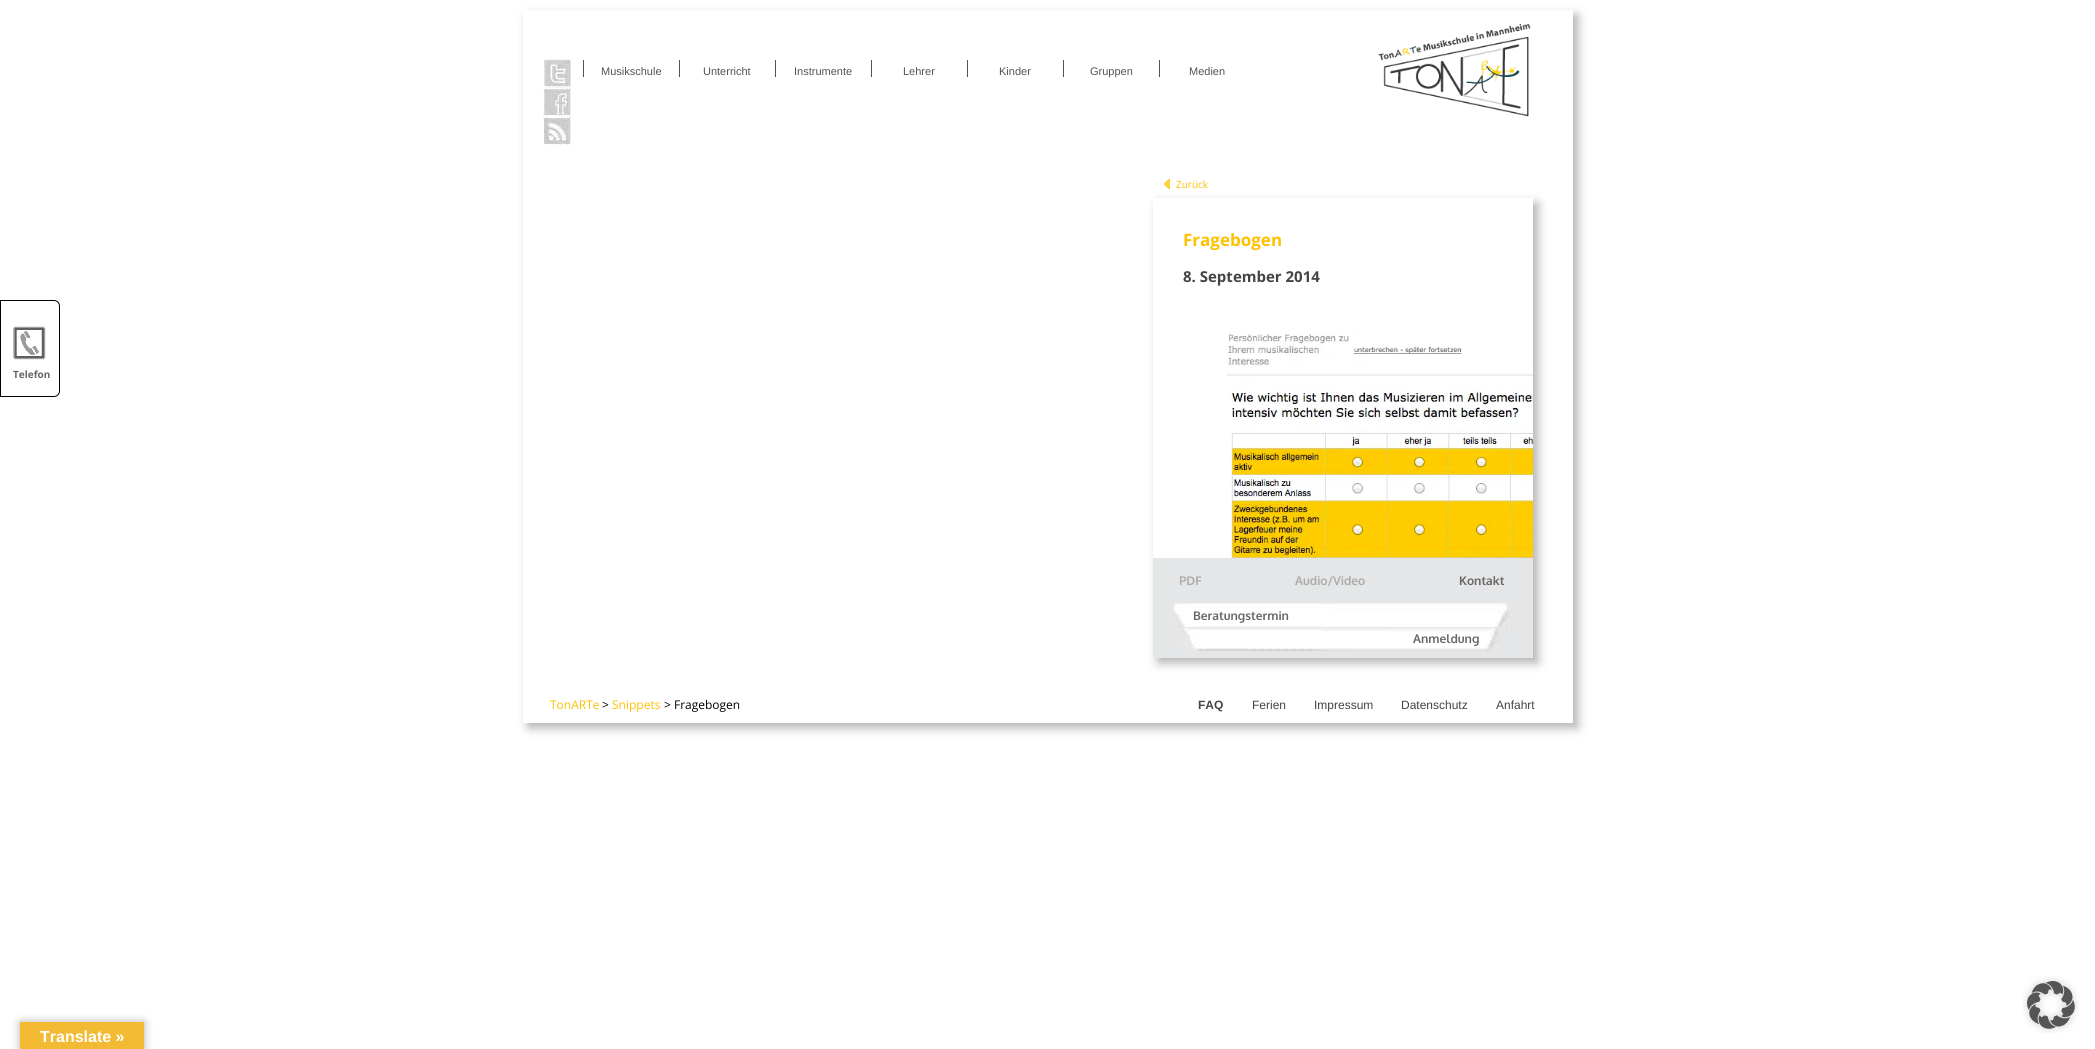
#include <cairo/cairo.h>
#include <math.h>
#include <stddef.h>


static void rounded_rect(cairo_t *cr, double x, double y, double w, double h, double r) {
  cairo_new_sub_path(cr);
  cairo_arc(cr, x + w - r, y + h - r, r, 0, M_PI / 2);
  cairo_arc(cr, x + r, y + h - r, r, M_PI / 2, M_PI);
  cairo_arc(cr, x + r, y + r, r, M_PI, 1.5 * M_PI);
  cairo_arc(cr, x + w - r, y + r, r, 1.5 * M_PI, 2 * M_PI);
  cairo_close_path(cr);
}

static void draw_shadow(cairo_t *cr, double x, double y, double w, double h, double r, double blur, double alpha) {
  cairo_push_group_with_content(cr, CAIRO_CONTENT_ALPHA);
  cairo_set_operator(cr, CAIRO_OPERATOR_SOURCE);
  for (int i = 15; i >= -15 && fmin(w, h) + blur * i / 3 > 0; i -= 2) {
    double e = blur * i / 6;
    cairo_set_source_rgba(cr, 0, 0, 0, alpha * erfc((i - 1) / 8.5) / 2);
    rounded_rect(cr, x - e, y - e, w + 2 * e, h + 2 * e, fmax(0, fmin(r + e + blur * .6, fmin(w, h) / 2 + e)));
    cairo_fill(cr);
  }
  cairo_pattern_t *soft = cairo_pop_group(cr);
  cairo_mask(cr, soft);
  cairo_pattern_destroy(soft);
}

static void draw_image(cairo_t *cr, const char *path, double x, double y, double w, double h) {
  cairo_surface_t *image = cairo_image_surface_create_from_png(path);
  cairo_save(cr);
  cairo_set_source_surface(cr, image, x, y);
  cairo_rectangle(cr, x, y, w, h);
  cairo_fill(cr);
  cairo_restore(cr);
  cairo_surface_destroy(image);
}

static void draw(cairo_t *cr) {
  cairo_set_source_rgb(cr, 1, 1, 1);
  cairo_paint(cr);
  cairo_save(cr);
  cairo_set_fill_rule(cr, CAIRO_FILL_RULE_EVEN_ODD);
  cairo_new_path(cr);
  cairo_move_to(cr, 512, 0);
  cairo_line_to(cr, 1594, 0);
  cairo_line_to(cr, 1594, 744);
  cairo_line_to(cr, 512, 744);
  cairo_close_path(cr);
  cairo_move_to(cr, 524, 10);
  cairo_line_to(cr, 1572, 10);
  cairo_curve_to(cr, 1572.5, 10, 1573, 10.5, 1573, 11);
  cairo_line_to(cr, 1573, 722);
  cairo_curve_to(cr, 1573, 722.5, 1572.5, 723, 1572, 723);
  cairo_line_to(cr, 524, 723);
  cairo_curve_to(cr, 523.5, 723, 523, 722.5, 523, 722);
  cairo_line_to(cr, 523, 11);
  cairo_curve_to(cr, 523, 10.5, 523.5, 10, 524, 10);
  cairo_close_path(cr);
  cairo_clip(cr);
  cairo_set_source_rgb(cr, 179 / 255.0, 179 / 255.0, 179 / 255.0);
  draw_shadow(cr, 528, 15, 1050, 713, 1, 5, 1);
  cairo_restore(cr);
  cairo_new_path(cr);
  cairo_move_to(cr, 0.5, 300.5);
  cairo_line_to(cr, 54, 300.5);
  cairo_curve_to(cr, 57, 300.5, 59.5, 303, 59.5, 306);
  cairo_line_to(cr, 59.5, 391);
  cairo_curve_to(cr, 59.5, 394, 57, 396.5, 54, 396.5);
  cairo_line_to(cr, 0.5, 396.5);
  cairo_close_path(cr);
  cairo_set_source_rgb(cr, 0, 0, 0);
  cairo_set_line_width(cr, 1);
  cairo_stroke(cr);
  draw_image(cr, "images/1.png", 13, 326, 33, 34);
  draw_image(cr, "images/2.png", 543, 58, 29, 30);
  draw_image(cr, "images/3.png", 543, 88, 28, 28);
  draw_image(cr, "images/4.png", 543, 117, 28, 29);
  cairo_set_source_rgb(cr, 83 / 255.0, 83 / 255.0, 83 / 255.0);
  cairo_rectangle(cr, 583, 60, 1, 17);
  cairo_fill(cr);
  cairo_rectangle(cr, 679, 60, 1, 17);
  cairo_fill(cr);
  cairo_rectangle(cr, 775, 60, 1, 17);
  cairo_fill(cr);
  cairo_rectangle(cr, 871, 60, 1, 17);
  cairo_fill(cr);
  cairo_rectangle(cr, 967, 60, 1, 17);
  cairo_fill(cr);
  cairo_rectangle(cr, 1063, 60, 1, 17);
  cairo_fill(cr);
  cairo_rectangle(cr, 1159, 60, 1, 17);
  cairo_fill(cr);
  draw_image(cr, "images/5.png", 1378, 24, 153, 93);
  draw_image(cr, "images/6.png", 1164, 179, 6, 10);
  cairo_set_source_rgb(cr, 179 / 255.0, 179 / 255.0, 179 / 255.0);
  draw_shadow(cr, 1158, 203, 380, 460, 1, 5, 1);
  cairo_set_source_rgb(cr, 1, 1, 1);
  cairo_rectangle(cr, 1153, 198, 380, 360);
  cairo_fill(cr);
  draw_image(cr, "images/7.png", 1227, 332, 306, 226);
  cairo_set_source_rgb(cr, 229 / 255.0, 230 / 255.0, 231 / 255.0);
  cairo_rectangle(cr, 1153, 558, 380, 100);
  cairo_fill(cr);
  draw_image(cr, "images/8.png", 1173, 603, 337, 24);
  draw_image(cr, "images/9.png", 1182, 628, 317, 23);
  draw_image(cr, "images/10.png", 2022, 976, 57, 57);
  cairo_set_source_rgb(cr, 0, 0, 0);
  draw_shadow(cr, 20, 1022, 124, 27, 0, 4.5, 0.3);
  cairo_set_source_rgb(cr, 243 / 255.0, 187 / 255.0, 51 / 255.0);
  cairo_rectangle(cr, 20, 1022, 124, 27);
  cairo_fill(cr);
  cairo_select_font_face(cr, "Open Sans", CAIRO_FONT_SLANT_NORMAL, CAIRO_FONT_WEIGHT_BOLD);
  cairo_set_font_size(cr, 10);
  cairo_set_source_rgb(cr, 102 / 255.0, 102 / 255.0, 102 / 255.0);
  cairo_move_to(cr, 13, 378);
  cairo_show_text(cr, "Telefon");
  cairo_select_font_face(cr, "Liberation Sans", CAIRO_FONT_SLANT_NORMAL, CAIRO_FONT_WEIGHT_NORMAL);
  cairo_set_font_size(cr, 11);
  cairo_set_source_rgb(cr, 83 / 255.0, 83 / 255.0, 83 / 255.0);
  cairo_move_to(cr, 601, 75);
  cairo_show_text(cr, "Musikschule");
  cairo_move_to(cr, 703, 75);
  cairo_show_text(cr, "Unterricht");
  cairo_move_to(cr, 794, 75);
  cairo_show_text(cr, "Instrumente");
  cairo_move_to(cr, 903, 75);
  cairo_show_text(cr, "Lehrer");
  cairo_move_to(cr, 999, 75);
  cairo_show_text(cr, "Kinder");
  cairo_move_to(cr, 1090, 75);
  cairo_show_text(cr, "Gruppen");
  cairo_move_to(cr, 1189, 75);
  cairo_show_text(cr, "Medien");
  cairo_select_font_face(cr, "Open Sans", CAIRO_FONT_SLANT_NORMAL, CAIRO_FONT_WEIGHT_NORMAL);
  cairo_set_font_size(cr, 10);
  cairo_set_source_rgb(cr, 1, 192 / 255.0, 0);
  cairo_move_to(cr, 1176, 188);
  cairo_show_text(cr, "Zurück");
  cairo_select_font_face(cr, "Open Sans", CAIRO_FONT_SLANT_NORMAL, CAIRO_FONT_WEIGHT_BOLD);
  cairo_set_font_size(cr, 17);
  cairo_move_to(cr, 1183, 246);
  cairo_show_text(cr, "Fragebogen");
  cairo_set_font_size(cr, 15);
  cairo_set_source_rgb(cr, 68 / 255.0, 68 / 255.0, 68 / 255.0);
  cairo_move_to(cr, 1183, 282);
  cairo_show_text(cr, "8. September 2014");
  cairo_select_font_face(cr, "Oxygen", CAIRO_FONT_SLANT_NORMAL, CAIRO_FONT_WEIGHT_BOLD);
  cairo_set_font_size(cr, 12);
  cairo_set_source_rgb(cr, 170 / 255.0, 170 / 255.0, 170 / 255.0);
  cairo_move_to(cr, 1179, 585);
  cairo_show_text(cr, "PDF");
  cairo_move_to(cr, 1295, 585);
  cairo_show_text(cr, "Audio/Video");
  cairo_set_source_rgb(cr, 102 / 255.0, 102 / 255.0, 102 / 255.0);
  cairo_move_to(cr, 1459, 585);
  cairo_show_text(cr, "Kontakt");
  cairo_move_to(cr, 1193, 620);
  cairo_show_text(cr, "Beratungstermin");
  cairo_move_to(cr, 1413, 643);
  cairo_show_text(cr, "Anmeldung");
  cairo_select_font_face(cr, "Open Sans", CAIRO_FONT_SLANT_NORMAL, CAIRO_FONT_WEIGHT_NORMAL);
  cairo_set_source_rgb(cr, 1, 192 / 255.0, 0);
  cairo_move_to(cr, 550, 709);
  cairo_show_text(cr, "TonARTe");
  cairo_set_source_rgb(cr, 0, 0, 0);
  cairo_move_to(cr, 602, 709);
  cairo_show_text(cr, ">");
  cairo_set_source_rgb(cr, 1, 192 / 255.0, 0);
  cairo_move_to(cr, 612, 709);
  cairo_show_text(cr, "Snippets");
  cairo_set_source_rgb(cr, 0, 0, 0);
  cairo_move_to(cr, 664, 709);
  cairo_show_text(cr, "> Fragebogen");
  cairo_select_font_face(cr, "Liberation Sans", CAIRO_FONT_SLANT_NORMAL, CAIRO_FONT_WEIGHT_BOLD);
  cairo_set_source_rgb(cr, 68 / 255.0, 68 / 255.0, 68 / 255.0);
  cairo_move_to(cr, 1198, 709);
  cairo_show_text(cr, "FAQ");
  cairo_select_font_face(cr, "Liberation Sans", CAIRO_FONT_SLANT_NORMAL, CAIRO_FONT_WEIGHT_NORMAL);
  cairo_move_to(cr, 1252, 709);
  cairo_show_text(cr, "Ferien");
  cairo_move_to(cr, 1314, 709);
  cairo_show_text(cr, "Impressum");
  cairo_move_to(cr, 1401, 709);
  cairo_show_text(cr, "Datenschutz");
  cairo_move_to(cr, 1496, 709);
  cairo_show_text(cr, "Anfahrt");
  cairo_select_font_face(cr, "Liberation Sans", CAIRO_FONT_SLANT_NORMAL, CAIRO_FONT_WEIGHT_BOLD);
  cairo_set_font_size(cr, 16);
  cairo_set_source_rgb(cr, 1, 1, 1);
  cairo_move_to(cr, 40, 1042);
  cairo_show_text(cr, "Translate »");
}

int main(void) {
  cairo_surface_t *surface = cairo_image_surface_create(CAIRO_FORMAT_RGB24, 2095, 1049);
  cairo_t *cr = cairo_create(surface);
  cairo_font_options_t *options = cairo_font_options_create();
  cairo_font_options_set_hint_metrics(options, CAIRO_HINT_METRICS_OFF);
  cairo_font_options_set_hint_style(options, CAIRO_HINT_STYLE_NONE);
  cairo_set_font_options(cr, options);
  cairo_set_miter_limit(cr, 4);
  draw(cr);
  cairo_surface_write_to_png(surface, "out.png");
  cairo_font_options_destroy(options);
  cairo_destroy(cr);
  cairo_surface_destroy(surface);
  return 0;
}
